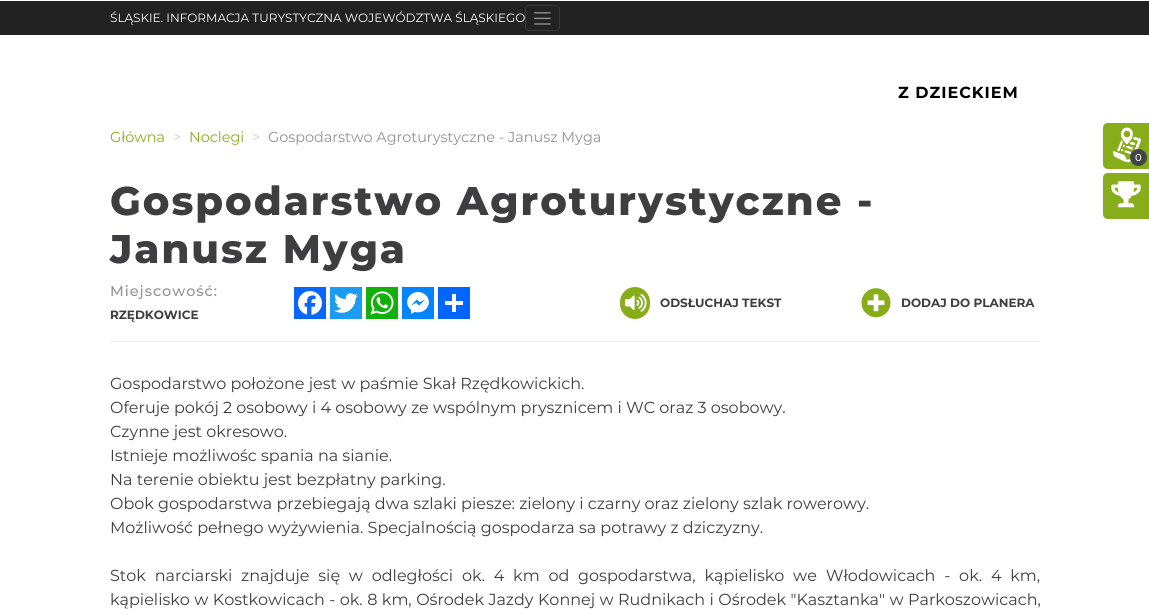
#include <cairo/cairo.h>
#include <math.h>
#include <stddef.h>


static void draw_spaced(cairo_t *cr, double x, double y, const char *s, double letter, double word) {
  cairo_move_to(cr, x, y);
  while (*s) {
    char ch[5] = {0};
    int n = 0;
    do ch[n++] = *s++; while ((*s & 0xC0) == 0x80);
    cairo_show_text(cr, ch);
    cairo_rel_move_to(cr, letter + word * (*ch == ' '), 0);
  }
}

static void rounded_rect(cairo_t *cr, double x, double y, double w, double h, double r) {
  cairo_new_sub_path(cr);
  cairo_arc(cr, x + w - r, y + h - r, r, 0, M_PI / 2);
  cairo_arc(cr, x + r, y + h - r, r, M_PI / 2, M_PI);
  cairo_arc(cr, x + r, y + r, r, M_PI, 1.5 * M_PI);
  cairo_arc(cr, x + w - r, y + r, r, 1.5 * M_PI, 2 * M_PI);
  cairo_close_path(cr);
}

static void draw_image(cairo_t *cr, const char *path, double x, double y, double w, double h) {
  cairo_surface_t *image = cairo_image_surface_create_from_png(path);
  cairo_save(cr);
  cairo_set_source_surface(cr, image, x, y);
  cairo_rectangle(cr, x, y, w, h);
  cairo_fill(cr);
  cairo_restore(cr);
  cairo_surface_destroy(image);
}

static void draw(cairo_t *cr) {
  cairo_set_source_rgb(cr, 1, 1, 1);
  cairo_paint(cr);
  cairo_set_source_rgb(cr, 34 / 255.0, 34 / 255.0, 34 / 255.0);
  cairo_rectangle(cr, 0, 1, 1149, 34);
  cairo_fill(cr);
  rounded_rect(cr, 525.5, 5.5, 34, 25, 3.5);
  cairo_set_source_rgb(cr, 56 / 255.0, 56 / 255.0, 56 / 255.0);
  cairo_set_line_width(cr, 1);
  cairo_stroke(cr);
  draw_image(cr, "images/1.png", 534, 12, 17, 13);
  cairo_set_source_rgb(cr, 136 / 255.0, 173 / 255.0, 27 / 255.0);
  cairo_new_path(cr);
  cairo_move_to(cr, 1108, 123);
  cairo_line_to(cr, 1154, 123);
  cairo_line_to(cr, 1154, 169);
  cairo_line_to(cr, 1108, 169);
  cairo_curve_to(cr, 1105, 169, 1103, 167, 1103, 164);
  cairo_line_to(cr, 1103, 128);
  cairo_curve_to(cr, 1103, 125, 1105, 123, 1108, 123);
  cairo_close_path(cr);
  cairo_fill(cr);
  draw_image(cr, "images/2.png", 1113, 127, 28, 36);
  cairo_set_source_rgb(cr, 68 / 255.0, 68 / 255.0, 68 / 255.0);
  cairo_arc(cr, 1138.5, 157.5, 8.5, 0, 2 * M_PI);
  cairo_fill(cr);
  cairo_set_source_rgb(cr, 239 / 255.0, 239 / 255.0, 240 / 255.0);
  cairo_rectangle(cr, 110, 341, 930, 1);
  cairo_fill(cr);
  cairo_set_source_rgb(cr, 8 / 255.0, 102 / 255.0, 1);
  cairo_rectangle(cr, 294, 287, 32, 32);
  cairo_fill(cr);
  draw_image(cr, "images/3.png", 298, 291, 24, 24);
  cairo_set_source_rgb(cr, 29 / 255.0, 155 / 255.0, 240 / 255.0);
  cairo_rectangle(cr, 330, 287, 32, 32);
  cairo_fill(cr);
  draw_image(cr, "images/4.png", 334, 293, 24, 20);
  cairo_set_source_rgb(cr, 18 / 255.0, 175 / 255.0, 10 / 255.0);
  cairo_rectangle(cr, 366, 287, 32, 32);
  cairo_fill(cr);
  draw_image(cr, "images/5.png", 370, 291, 24, 24);
  cairo_set_source_rgb(cr, 0, 132 / 255.0, 1);
  cairo_rectangle(cr, 402, 287, 32, 32);
  cairo_fill(cr);
  draw_image(cr, "images/6.png", 407, 292, 22, 22);
  cairo_set_source_rgb(cr, 1 / 255.0, 102 / 255.0, 1);
  cairo_rectangle(cr, 438, 287, 32, 32);
  cairo_fill(cr);
  cairo_set_source_rgb(cr, 1, 1, 1);
  cairo_rectangle(cr, 452, 294, 4, 18);
  cairo_fill(cr);
  cairo_rectangle(cr, 445, 301, 18, 4);
  cairo_fill(cr);
  cairo_set_source_rgb(cr, 136 / 255.0, 173 / 255.0, 27 / 255.0);
  rounded_rect(cr, 620, 287, 30, 32, 15);
  cairo_fill(cr);
  draw_image(cr, "images/7.png", 625, 293, 22, 19);
  draw_image(cr, "images/8.png", 861, 288, 30, 30);
  cairo_new_path(cr);
  cairo_move_to(cr, 1108, 173);
  cairo_line_to(cr, 1149, 173);
  cairo_line_to(cr, 1149, 219);
  cairo_line_to(cr, 1108, 219);
  cairo_curve_to(cr, 1105, 219, 1103, 217, 1103, 214);
  cairo_line_to(cr, 1103, 178);
  cairo_curve_to(cr, 1103, 175, 1105, 173, 1108, 173);
  cairo_close_path(cr);
  cairo_fill(cr);
  draw_image(cr, "images/9.png", 1111, 181, 30, 27);
  cairo_select_font_face(cr, "Montserrat", CAIRO_FONT_SLANT_NORMAL, CAIRO_FONT_WEIGHT_NORMAL);
  cairo_set_font_size(cr, 12);
  cairo_set_source_rgb(cr, 1, 1, 1);
  cairo_move_to(cr, 110, 22);
  cairo_show_text(cr, "ŚLĄSKIE. INFORMACJA TURYSTYCZNA WOJEWÓDZTWA ŚLĄSKIEGO");
  cairo_select_font_face(cr, "Montserrat", CAIRO_FONT_SLANT_NORMAL, CAIRO_FONT_WEIGHT_BOLD);
  cairo_set_font_size(cr, 16);
  cairo_set_source_rgb(cr, 0, 0, 0);
  draw_spaced(cr, 898, 98, "Z DZIECKIEM", 1, 0);
  cairo_select_font_face(cr, "Montserrat", CAIRO_FONT_SLANT_NORMAL, CAIRO_FONT_WEIGHT_NORMAL);
  cairo_set_font_size(cr, 14.4);
  cairo_set_source_rgb(cr, 136 / 255.0, 173 / 255.0, 27 / 255.0);
  cairo_move_to(cr, 110, 142);
  cairo_show_text(cr, "Główna");
  cairo_set_source_rgb(cr, 204 / 255.0, 204 / 255.0, 204 / 255.0);
  cairo_move_to(cr, 173, 142);
  cairo_show_text(cr, ">");
  cairo_set_source_rgb(cr, 136 / 255.0, 173 / 255.0, 27 / 255.0);
  cairo_move_to(cr, 189, 142);
  cairo_show_text(cr, "Noclegi");
  cairo_set_source_rgb(cr, 204 / 255.0, 204 / 255.0, 204 / 255.0);
  cairo_move_to(cr, 252, 142);
  cairo_show_text(cr, ">");
  cairo_set_source_rgb(cr, 146 / 255.0, 146 / 255.0, 146 / 255.0);
  cairo_move_to(cr, 268, 142);
  cairo_show_text(cr, "Gospodarstwo Agroturystyczne - Janusz Myga");
  cairo_select_font_face(cr, "Montserrat Medium", CAIRO_FONT_SLANT_NORMAL, CAIRO_FONT_WEIGHT_NORMAL);
  cairo_set_font_size(cr, 10);
  cairo_set_source_rgb(cr, 1, 1, 1);
  cairo_move_to(cr, 1135, 161);
  cairo_show_text(cr, "0");
  cairo_select_font_face(cr, "Montserrat ExtraBold", CAIRO_FONT_SLANT_NORMAL, CAIRO_FONT_WEIGHT_NORMAL);
  cairo_set_font_size(cr, 40);
  cairo_set_source_rgb(cr, 62 / 255.0, 61 / 255.0, 64 / 255.0);
  draw_spaced(cr, 110, 215, "Gospodarstwo Agroturystyczne -", 2, 0);
  draw_spaced(cr, 110, 263, "Janusz Myga", 2, 0);
  cairo_select_font_face(cr, "Montserrat Medium", CAIRO_FONT_SLANT_NORMAL, CAIRO_FONT_WEIGHT_NORMAL);
  cairo_set_font_size(cr, 14.4);
  cairo_set_source_rgb(cr, 146 / 255.0, 146 / 255.0, 146 / 255.0);
  draw_spaced(cr, 110, 296, "Miejscowość:", 1, 0);
  cairo_select_font_face(cr, "Montserrat", CAIRO_FONT_SLANT_NORMAL, CAIRO_FONT_WEIGHT_BOLD);
  cairo_set_font_size(cr, 12);
  cairo_set_source_rgb(cr, 62 / 255.0, 61 / 255.0, 64 / 255.0);
  cairo_move_to(cr, 110, 319);
  cairo_show_text(cr, "RZĘDKOWICE");
  cairo_move_to(cr, 660, 307);
  cairo_show_text(cr, "ODSŁUCHAJ TEKST");
  cairo_move_to(cr, 901, 307);
  cairo_show_text(cr, "DODAJ DO PLANERA");
  cairo_select_font_face(cr, "Montserrat", CAIRO_FONT_SLANT_NORMAL, CAIRO_FONT_WEIGHT_NORMAL);
  cairo_set_font_size(cr, 16);
  cairo_move_to(cr, 110, 389);
  cairo_show_text(cr, "Gospodarstwo położone jest w paśmie Skał Rzędkowickich.");
  cairo_move_to(cr, 110, 413);
  cairo_show_text(cr, "Oferuje pokój 2 osobowy i 4 osobowy ze wspólnym prysznicem i WC oraz 3 osobowy.");
  cairo_move_to(cr, 110, 437);
  cairo_show_text(cr, "Czynne jest okresowo.");
  cairo_move_to(cr, 110, 461);
  cairo_show_text(cr, "Istnieje możliwośc spania na sianie.");
  cairo_move_to(cr, 110, 485);
  cairo_show_text(cr, "Na terenie obiektu jest bezpłatny parking.");
  cairo_move_to(cr, 110, 509);
  cairo_show_text(cr, "Obok gospodarstwa przebiegają dwa szlaki piesze: zielony i czarny oraz zielony szlak rowerowy.");
  cairo_move_to(cr, 110, 533);
  cairo_show_text(cr, "Możliwość pełnego wyżywienia. Specjalnością gospodarza sa potrawy z dziczyzny.");
  draw_spaced(cr, 110, 581, "Stok narciarski znajduje się w odległości ok. 4 km od gospodarstwa, kąpielisko we Włodowicach - ok. 4 km,", 0, 4.6);
  draw_spaced(cr, 110, 605, "kąpielisko w Kostkowicach - ok. 8 km, Ośrodek Jazdy Konnej w Rudnikach i Ośrodek \"Kasztanka\" w Parkoszowicach,", 0, 0.25);
}

int main(void) {
  cairo_surface_t *surface = cairo_image_surface_create(CAIRO_FORMAT_RGB24, 1149, 615);
  cairo_t *cr = cairo_create(surface);
  cairo_font_options_t *options = cairo_font_options_create();
  cairo_font_options_set_hint_metrics(options, CAIRO_HINT_METRICS_OFF);
  cairo_font_options_set_hint_style(options, CAIRO_HINT_STYLE_NONE);
  cairo_set_font_options(cr, options);
  cairo_set_miter_limit(cr, 4);
  draw(cr);
  cairo_surface_write_to_png(surface, "out.png");
  cairo_font_options_destroy(options);
  cairo_destroy(cr);
  cairo_surface_destroy(surface);
  return 0;
}
